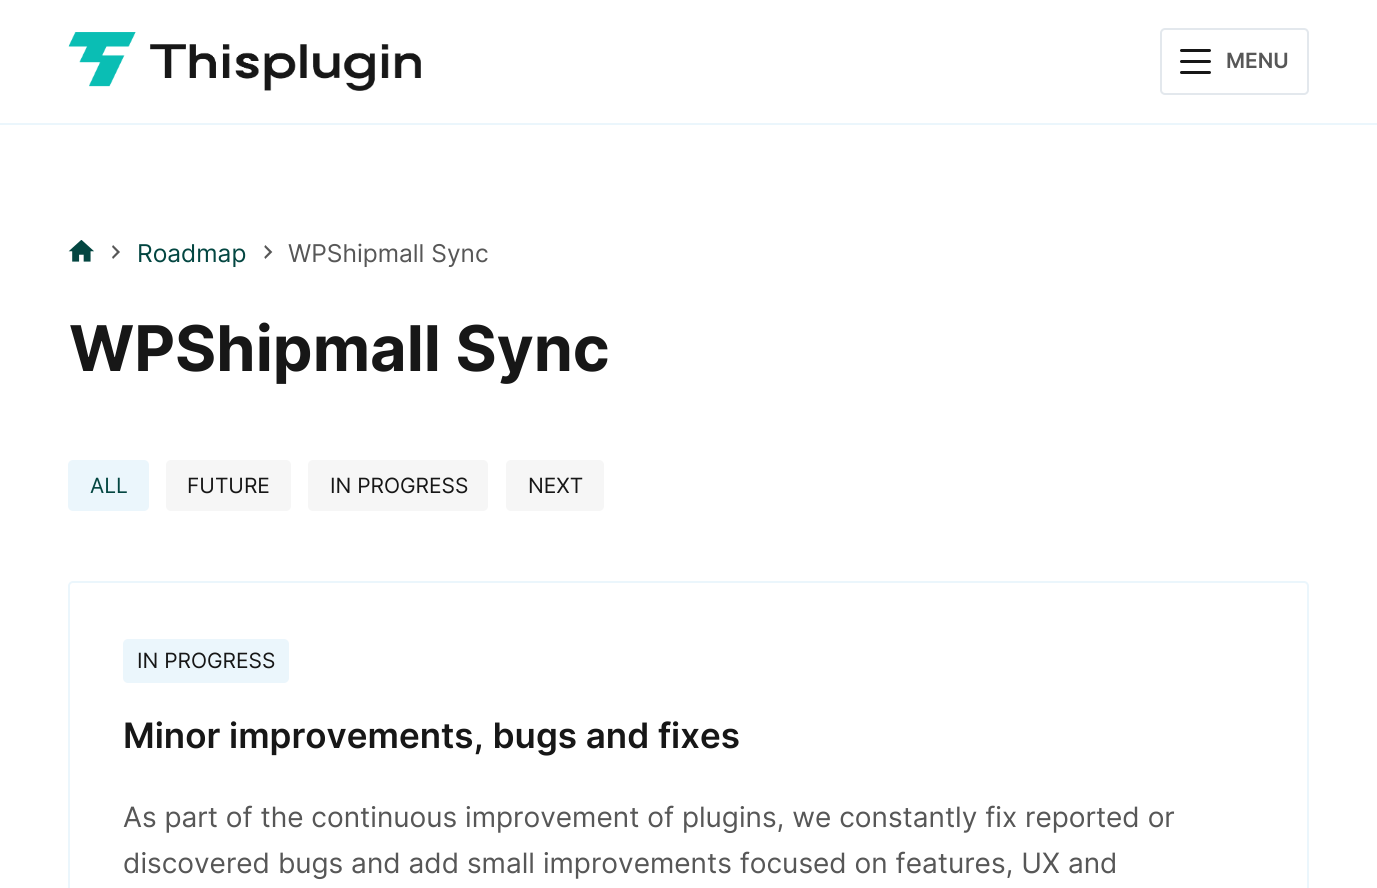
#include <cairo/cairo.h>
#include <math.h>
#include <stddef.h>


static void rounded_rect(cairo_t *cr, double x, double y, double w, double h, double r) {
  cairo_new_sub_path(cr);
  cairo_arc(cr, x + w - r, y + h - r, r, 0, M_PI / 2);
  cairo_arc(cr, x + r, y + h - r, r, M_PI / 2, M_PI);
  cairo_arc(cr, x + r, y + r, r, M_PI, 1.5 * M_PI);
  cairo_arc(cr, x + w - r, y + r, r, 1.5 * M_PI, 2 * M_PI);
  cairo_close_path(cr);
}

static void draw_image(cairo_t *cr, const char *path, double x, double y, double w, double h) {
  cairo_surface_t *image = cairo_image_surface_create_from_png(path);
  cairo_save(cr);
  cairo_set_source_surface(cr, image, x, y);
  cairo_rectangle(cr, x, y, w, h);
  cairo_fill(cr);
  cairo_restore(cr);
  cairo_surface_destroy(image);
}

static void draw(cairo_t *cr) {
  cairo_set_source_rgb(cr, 1, 1, 1);
  cairo_paint(cr);
  cairo_set_source_rgb(cr, 235 / 255.0, 246 / 255.0, 252 / 255.0);
  cairo_rectangle(cr, 0, 123, 1377, 2);
  cairo_fill(cr);
  draw_image(cr, "images/1.png", 68, 32, 353, 59);
  rounded_rect(cr, 1161, 29, 147, 65, 4);
  cairo_set_source_rgb(cr, 227 / 255.0, 232 / 255.0, 237 / 255.0);
  cairo_stroke(cr);
  cairo_set_source_rgb(cr, 23 / 255.0, 23 / 255.0, 23 / 255.0);
  rounded_rect(cr, 1180, 49, 31, 3, 1.5);
  cairo_fill(cr);
  rounded_rect(cr, 1180, 60, 31, 3, 1.5);
  cairo_fill(cr);
  rounded_rect(cr, 1180, 71, 31, 3, 1.5);
  cairo_fill(cr);
  draw_image(cr, "images/2.png", 68, 240, 26, 22);
  draw_image(cr, "images/3.png", 112, 245, 8, 14);
  draw_image(cr, "images/4.png", 264, 245, 9, 14);
  cairo_set_source_rgb(cr, 235 / 255.0, 246 / 255.0, 252 / 255.0);
  rounded_rect(cr, 68, 460, 81, 51, 5);
  cairo_fill(cr);
  cairo_set_source_rgb(cr, 246 / 255.0, 246 / 255.0, 246 / 255.0);
  rounded_rect(cr, 166, 460, 125, 51, 5);
  cairo_fill(cr);
  rounded_rect(cr, 308, 460, 180, 51, 5);
  cairo_fill(cr);
  rounded_rect(cr, 506, 460, 98, 51, 5);
  cairo_fill(cr);
  rounded_rect(cr, 69, 582, 1239, 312, 4);
  cairo_set_source_rgb(cr, 235 / 255.0, 246 / 255.0, 252 / 255.0);
  cairo_stroke(cr);
  rounded_rect(cr, 123, 639, 166, 44, 5);
  cairo_fill(cr);
  cairo_select_font_face(cr, "Inter SemiBold", CAIRO_FONT_SLANT_NORMAL, CAIRO_FONT_WEIGHT_NORMAL);
  cairo_set_font_size(cr, 21);
  cairo_set_source_rgb(cr, 87 / 255.0, 87 / 255.0, 87 / 255.0);
  cairo_move_to(cr, 1226, 68);
  cairo_show_text(cr, "MENU");
  cairo_select_font_face(cr, "Inter", CAIRO_FONT_SLANT_NORMAL, CAIRO_FONT_WEIGHT_NORMAL);
  cairo_set_font_size(cr, 24.5);
  cairo_set_source_rgb(cr, 3 / 255.0, 70 / 255.0, 65 / 255.0);
  cairo_move_to(cr, 137, 262);
  cairo_show_text(cr, "Roadmap");
  cairo_set_source_rgb(cr, 87 / 255.0, 87 / 255.0, 87 / 255.0);
  cairo_move_to(cr, 288, 262);
  cairo_show_text(cr, "WPShipmall Sync");
  cairo_select_font_face(cr, "Inter", CAIRO_FONT_SLANT_NORMAL, CAIRO_FONT_WEIGHT_BOLD);
  cairo_set_font_size(cr, 63);
  cairo_set_source_rgb(cr, 23 / 255.0, 23 / 255.0, 23 / 255.0);
  cairo_move_to(cr, 69, 371);
  cairo_show_text(cr, "WPShipmall Sync");
  cairo_select_font_face(cr, "Inter", CAIRO_FONT_SLANT_NORMAL, CAIRO_FONT_WEIGHT_NORMAL);
  cairo_set_font_size(cr, 21);
  cairo_set_source_rgb(cr, 3 / 255.0, 70 / 255.0, 65 / 255.0);
  cairo_move_to(cr, 90, 493);
  cairo_show_text(cr, "ALL");
  cairo_set_source_rgb(cr, 23 / 255.0, 23 / 255.0, 23 / 255.0);
  cairo_move_to(cr, 187, 493);
  cairo_show_text(cr, "FUTURE");
  cairo_move_to(cr, 330, 493);
  cairo_show_text(cr, "IN PROGRESS");
  cairo_move_to(cr, 528, 493);
  cairo_show_text(cr, "NEXT");
  cairo_move_to(cr, 137, 668);
  cairo_show_text(cr, "IN PROGRESS");
  cairo_select_font_face(cr, "Inter SemiBold", CAIRO_FONT_SLANT_NORMAL, CAIRO_FONT_WEIGHT_NORMAL);
  cairo_set_font_size(cr, 35);
  cairo_move_to(cr, 123, 748);
  cairo_show_text(cr, "Minor improvements, bugs and fixes");
  cairo_select_font_face(cr, "Inter", CAIRO_FONT_SLANT_NORMAL, CAIRO_FONT_WEIGHT_NORMAL);
  cairo_set_font_size(cr, 28);
  cairo_set_source_rgb(cr, 87 / 255.0, 87 / 255.0, 87 / 255.0);
  cairo_move_to(cr, 123, 827);
  cairo_show_text(cr, "As part of the continuous improvement of plugins, we constantly fix reported or");
  cairo_move_to(cr, 123, 873);
  cairo_show_text(cr, "discovered bugs and add small improvements focused on features, UX and");
}

int main(void) {
  cairo_surface_t *surface = cairo_image_surface_create(CAIRO_FORMAT_RGB24, 1377, 888);
  cairo_t *cr = cairo_create(surface);
  cairo_font_options_t *options = cairo_font_options_create();
  cairo_font_options_set_hint_metrics(options, CAIRO_HINT_METRICS_OFF);
  cairo_font_options_set_hint_style(options, CAIRO_HINT_STYLE_NONE);
  cairo_set_font_options(cr, options);
  cairo_set_miter_limit(cr, 4);
  draw(cr);
  cairo_surface_write_to_png(surface, "out.png");
  cairo_font_options_destroy(options);
  cairo_destroy(cr);
  cairo_surface_destroy(surface);
  return 0;
}
